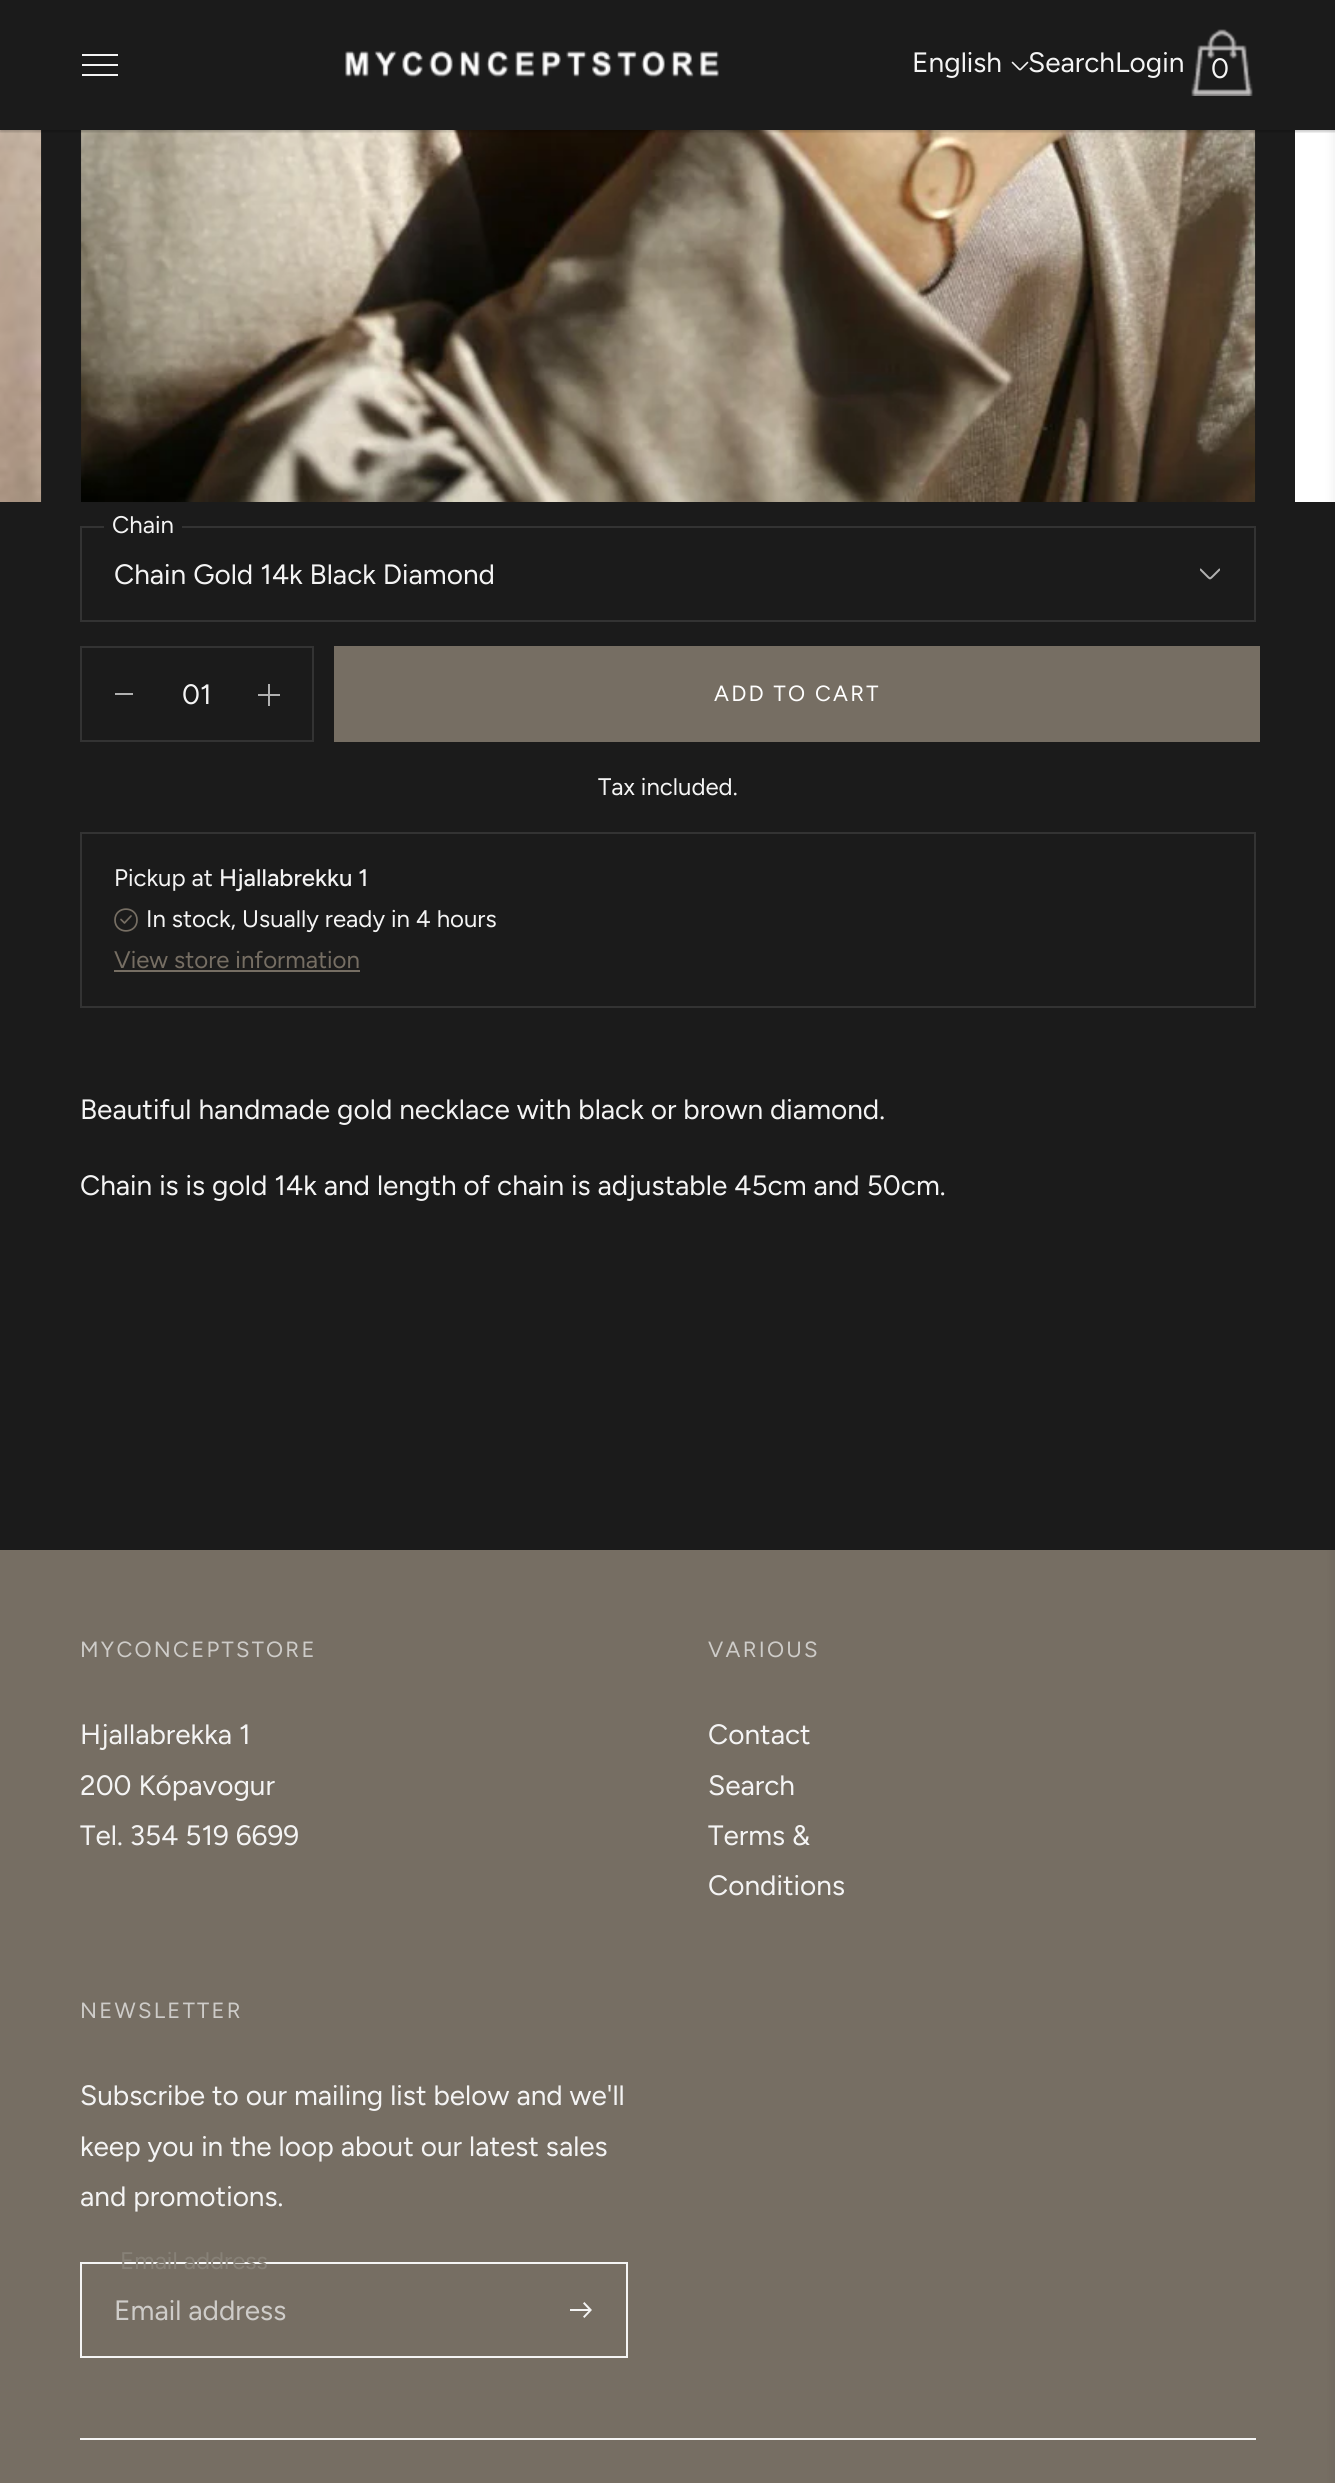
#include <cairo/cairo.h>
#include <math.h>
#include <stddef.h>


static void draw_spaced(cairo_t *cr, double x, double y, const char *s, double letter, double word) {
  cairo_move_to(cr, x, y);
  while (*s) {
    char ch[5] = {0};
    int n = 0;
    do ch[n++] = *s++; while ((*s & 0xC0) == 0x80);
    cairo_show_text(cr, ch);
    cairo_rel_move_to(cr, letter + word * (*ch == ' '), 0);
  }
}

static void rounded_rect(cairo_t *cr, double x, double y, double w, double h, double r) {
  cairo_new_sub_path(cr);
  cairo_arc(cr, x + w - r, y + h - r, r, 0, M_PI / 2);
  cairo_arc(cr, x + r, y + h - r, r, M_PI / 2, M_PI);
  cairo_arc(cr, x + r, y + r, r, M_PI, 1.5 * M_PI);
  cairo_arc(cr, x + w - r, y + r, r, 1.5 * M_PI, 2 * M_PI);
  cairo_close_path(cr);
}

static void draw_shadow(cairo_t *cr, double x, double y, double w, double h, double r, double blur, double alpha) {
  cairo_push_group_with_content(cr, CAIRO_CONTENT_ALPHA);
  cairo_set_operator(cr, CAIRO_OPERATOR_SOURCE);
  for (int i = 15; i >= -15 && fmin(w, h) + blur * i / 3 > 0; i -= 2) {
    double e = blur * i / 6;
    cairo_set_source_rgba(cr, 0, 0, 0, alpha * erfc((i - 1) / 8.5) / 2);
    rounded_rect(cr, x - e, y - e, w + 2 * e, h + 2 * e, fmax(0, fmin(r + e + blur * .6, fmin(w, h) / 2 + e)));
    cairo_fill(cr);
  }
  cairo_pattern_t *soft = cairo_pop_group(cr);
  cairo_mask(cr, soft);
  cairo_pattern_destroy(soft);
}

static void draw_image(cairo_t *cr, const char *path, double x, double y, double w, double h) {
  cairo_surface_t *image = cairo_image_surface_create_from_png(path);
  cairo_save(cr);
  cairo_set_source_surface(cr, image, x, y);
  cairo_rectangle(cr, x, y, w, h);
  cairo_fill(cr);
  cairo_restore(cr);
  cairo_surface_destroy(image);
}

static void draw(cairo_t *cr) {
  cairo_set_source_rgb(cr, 27 / 255.0, 27 / 255.0, 27 / 255.0);
  cairo_paint(cr);
  draw_image(cr, "images/3.png", 0, 130, 42, 372);
  draw_image(cr, "images/4.png", 81, 130, 1175, 372);
  cairo_set_source_rgb(cr, 1, 1, 1);
  cairo_rectangle(cr, 1295, 130, 40, 372);
  cairo_fill(cr);
  cairo_save(cr);
  cairo_rectangle(cr, 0, 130, 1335, 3);
  cairo_clip(cr);
  cairo_set_source_rgb(cr, 0, 0, 0);
  draw_shadow(cr, 0, 2, 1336, 130, 0, 1, 0.2);
  cairo_restore(cr);
  cairo_new_path(cr);
  cairo_move_to(cr, 82, 55);
  cairo_line_to(cr, 118, 55);
  cairo_move_to(cr, 82, 65);
  cairo_line_to(cr, 118, 65);
  cairo_move_to(cr, 82, 75);
  cairo_line_to(cr, 118, 75);
  cairo_set_source_rgb(cr, 244 / 255.0, 244 / 255.0, 244 / 255.0);
  cairo_stroke(cr);
  draw_image(cr, "images/1.png", 345, 51, 374, 27);
  cairo_new_path(cr);
  cairo_move_to(cr, 1012.5, 62.5);
  cairo_line_to(cr, 1019.5, 69.5);
  cairo_curve_to(cr, 1020, 69.5, 1020, 69.5, 1020.5, 69.5);
  cairo_line_to(cr, 1027.5, 62.5);
  cairo_set_line_width(cr, 1.6);
  cairo_set_line_cap(cr, CAIRO_LINE_CAP_ROUND);
  cairo_set_line_join(cr, CAIRO_LINE_JOIN_ROUND);
  cairo_stroke(cr);
  draw_image(cr, "images/2.png", 1191, 29, 62, 67);
  cairo_set_source_rgb(cr, 118 / 255.0, 110 / 255.0, 99 / 255.0);
  cairo_rectangle(cr, 0, 1550, 1335, 933);
  cairo_fill(cr);
  cairo_set_source_rgb(cr, 0, 0, 0);
  draw_shadow(cr, 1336, 8, 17, 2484, 0, 6, 0.1);
  cairo_rectangle(cr, 81, 527, 1174, 94);
  cairo_set_source_rgb(cr, 51 / 255.0, 51 / 255.0, 51 / 255.0);
  cairo_set_line_width(cr, 2);
  cairo_set_line_cap(cr, CAIRO_LINE_CAP_BUTT);
  cairo_set_line_join(cr, CAIRO_LINE_JOIN_MITER);
  cairo_stroke(cr);
  cairo_set_source_rgb(cr, 27 / 255.0, 27 / 255.0, 27 / 255.0);
  cairo_rectangle(cr, 104, 526, 78, 2);
  cairo_fill(cr);
  cairo_save(cr);
  cairo_rectangle(cr, 1200, 564, 20, 20);
  cairo_clip(cr);
  cairo_new_path(cr);
  cairo_move_to(cr, 1200.5, 569.5);
  cairo_line_to(cr, 1208, 577);
  cairo_curve_to(cr, 1210.5, 579, 1209.5, 579, 1212, 577);
  cairo_line_to(cr, 1219.5, 569.5);
  cairo_set_source_rgb(cr, 177 / 255.0, 177 / 255.0, 177 / 255.0);
  cairo_set_line_cap(cr, CAIRO_LINE_CAP_ROUND);
  cairo_set_line_join(cr, CAIRO_LINE_JOIN_ROUND);
  cairo_stroke(cr);
  cairo_restore(cr);
  cairo_rectangle(cr, 81, 647, 232, 94);
  cairo_set_source_rgb(cr, 51 / 255.0, 51 / 255.0, 51 / 255.0);
  cairo_stroke(cr);
  cairo_set_source_rgb(cr, 177 / 255.0, 177 / 255.0, 177 / 255.0);
  cairo_rectangle(cr, 115, 693, 18, 2);
  cairo_fill(cr);
  cairo_new_path(cr);
  cairo_move_to(cr, 269, 684);
  cairo_line_to(cr, 269, 706);
  cairo_move_to(cr, 258, 695);
  cairo_line_to(cr, 280, 695);
  cairo_stroke(cr);
  cairo_set_source_rgb(cr, 118 / 255.0, 110 / 255.0, 99 / 255.0);
  cairo_rectangle(cr, 334, 646, 926, 96);
  cairo_fill(cr);
  cairo_rectangle(cr, 81, 833, 1174, 174);
  cairo_set_source_rgb(cr, 51 / 255.0, 51 / 255.0, 51 / 255.0);
  cairo_stroke(cr);
  cairo_new_path(cr);
  cairo_move_to(cr, 121, 919.5);
  cairo_line_to(cr, 124.5, 923);
  cairo_line_to(cr, 131, 916);
  cairo_move_to(cr, 115, 920);
  cairo_curve_to(cr, 115, 934.5, 137, 934.5, 137, 920);
  cairo_curve_to(cr, 137, 905.5, 115, 905.5, 115, 920);
  cairo_close_path(cr);
  cairo_set_source_rgb(cr, 118 / 255.0, 110 / 255.0, 99 / 255.0);
  cairo_set_line_width(cr, 1.7);
  cairo_set_line_cap(cr, CAIRO_LINE_CAP_ROUND);
  cairo_set_line_join(cr, CAIRO_LINE_JOIN_ROUND);
  cairo_stroke(cr);
  cairo_rectangle(cr, 114, 970, 246, 2);
  cairo_fill(cr);
  cairo_rectangle(cr, 81, 2263, 546, 94);
  cairo_set_source_rgb(cr, 244 / 255.0, 244 / 255.0, 244 / 255.0);
  cairo_set_line_width(cr, 2);
  cairo_set_line_cap(cr, CAIRO_LINE_CAP_BUTT);
  cairo_set_line_join(cr, CAIRO_LINE_JOIN_MITER);
  cairo_stroke(cr);
  draw_image(cr, "images/5.png", 570, 2302, 22, 16);
  cairo_rectangle(cr, 80, 2438, 1176, 2);
  cairo_fill(cr);
  cairo_select_font_face(cr, "Figtree", CAIRO_FONT_SLANT_NORMAL, CAIRO_FONT_WEIGHT_NORMAL);
  cairo_set_font_size(cr, 28);
  cairo_move_to(cr, 912, 72);
  cairo_show_text(cr, "English");
  cairo_move_to(cr, 1028, 72);
  cairo_show_text(cr, "SearchLogin");
  cairo_move_to(cr, 1211, 78);
  cairo_show_text(cr, "0");
  cairo_set_font_size(cr, 24);
  cairo_move_to(cr, 112, 533);
  cairo_show_text(cr, "Chain");
  cairo_set_font_size(cr, 28);
  cairo_move_to(cr, 114, 584);
  cairo_show_text(cr, "Chain Gold 14k Black Diamond");
  cairo_move_to(cr, 182, 704);
  cairo_show_text(cr, "01");
  cairo_set_font_size(cr, 22);
  cairo_set_source_rgb(cr, 1, 1, 1);
  draw_spaced(cr, 714, 701, "ADD TO CART", 2.25, 0);
  cairo_set_font_size(cr, 24);
  cairo_set_source_rgb(cr, 244 / 255.0, 244 / 255.0, 244 / 255.0);
  cairo_move_to(cr, 598, 795);
  cairo_show_text(cr, "Tax included.");
  cairo_move_to(cr, 114, 886);
  cairo_show_text(cr, "Pickup at");
  cairo_select_font_face(cr, "Figtree Medium", CAIRO_FONT_SLANT_NORMAL, CAIRO_FONT_WEIGHT_NORMAL);
  cairo_move_to(cr, 219, 886);
  cairo_show_text(cr, "Hjallabrekku 1");
  cairo_select_font_face(cr, "Figtree", CAIRO_FONT_SLANT_NORMAL, CAIRO_FONT_WEIGHT_NORMAL);
  cairo_move_to(cr, 146, 927);
  cairo_show_text(cr, "In stock, Usually ready in 4 hours");
  cairo_set_source_rgb(cr, 118 / 255.0, 110 / 255.0, 99 / 255.0);
  cairo_move_to(cr, 114, 968);
  cairo_show_text(cr, "View store information");
  cairo_set_font_size(cr, 28);
  cairo_set_source_rgb(cr, 244 / 255.0, 244 / 255.0, 244 / 255.0);
  cairo_move_to(cr, 80, 1119);
  cairo_show_text(cr, "Beautiful handmade gold necklace with black or brown diamond.");
  cairo_move_to(cr, 80, 1195);
  cairo_show_text(cr, "Chain is is gold 14k and length of chain is adjustable 45cm and 50cm.");
  cairo_set_font_size(cr, 22);
  cairo_set_source_rgb(cr, 206 / 255.0, 204 / 255.0, 201 / 255.0);
  draw_spaced(cr, 80, 1657, "MYCONCEPTSTORE", 2.25, 0);
  cairo_set_font_size(cr, 28);
  cairo_set_source_rgb(cr, 244 / 255.0, 244 / 255.0, 244 / 255.0);
  cairo_move_to(cr, 80, 1744);
  cairo_show_text(cr, "Hjallabrekka 1");
  cairo_move_to(cr, 80, 1795);
  cairo_show_text(cr, "200 Kópavogur");
  cairo_move_to(cr, 80, 1845);
  cairo_show_text(cr, "Tel. 354 519 6699");
  cairo_set_font_size(cr, 22);
  cairo_set_source_rgb(cr, 206 / 255.0, 204 / 255.0, 201 / 255.0);
  draw_spaced(cr, 708, 1657, "VARIOUS", 2.25, 0);
  cairo_set_font_size(cr, 28);
  cairo_set_source_rgb(cr, 244 / 255.0, 244 / 255.0, 244 / 255.0);
  cairo_move_to(cr, 708, 1744);
  cairo_show_text(cr, "Contact");
  cairo_move_to(cr, 708, 1795);
  cairo_show_text(cr, "Search");
  cairo_move_to(cr, 708, 1845);
  cairo_show_text(cr, "Terms &");
  cairo_move_to(cr, 708, 1895);
  cairo_show_text(cr, "Conditions");
  cairo_set_font_size(cr, 22);
  cairo_set_source_rgb(cr, 206 / 255.0, 204 / 255.0, 201 / 255.0);
  draw_spaced(cr, 80, 2018, "NEWSLETTER", 2.25, 0);
  cairo_set_font_size(cr, 28);
  cairo_set_source_rgb(cr, 244 / 255.0, 244 / 255.0, 244 / 255.0);
  cairo_move_to(cr, 80, 2105);
  cairo_show_text(cr, "Subscribe to our mailing list below and we'll");
  cairo_move_to(cr, 80, 2156);
  cairo_show_text(cr, "keep you in the loop about our latest sales");
  cairo_move_to(cr, 80, 2206);
  cairo_show_text(cr, "and promotions.");
  cairo_set_font_size(cr, 24);
  cairo_set_source_rgb(cr, 135 / 255.0, 129 / 255.0, 119 / 255.0);
  cairo_move_to(cr, 120, 2269);
  cairo_show_text(cr, "Email address");
  cairo_set_font_size(cr, 28);
  cairo_set_source_rgb(cr, 206 / 255.0, 204 / 255.0, 201 / 255.0);
  cairo_move_to(cr, 114, 2320);
  cairo_show_text(cr, "Email address");
}

int main(void) {
  cairo_surface_t *surface = cairo_image_surface_create(CAIRO_FORMAT_RGB24, 1335, 2483);
  cairo_t *cr = cairo_create(surface);
  cairo_font_options_t *options = cairo_font_options_create();
  cairo_font_options_set_hint_metrics(options, CAIRO_HINT_METRICS_OFF);
  cairo_font_options_set_hint_style(options, CAIRO_HINT_STYLE_NONE);
  cairo_set_font_options(cr, options);
  cairo_set_miter_limit(cr, 4);
  draw(cr);
  cairo_surface_write_to_png(surface, "out.png");
  cairo_font_options_destroy(options);
  cairo_destroy(cr);
  cairo_surface_destroy(surface);
  return 0;
}
